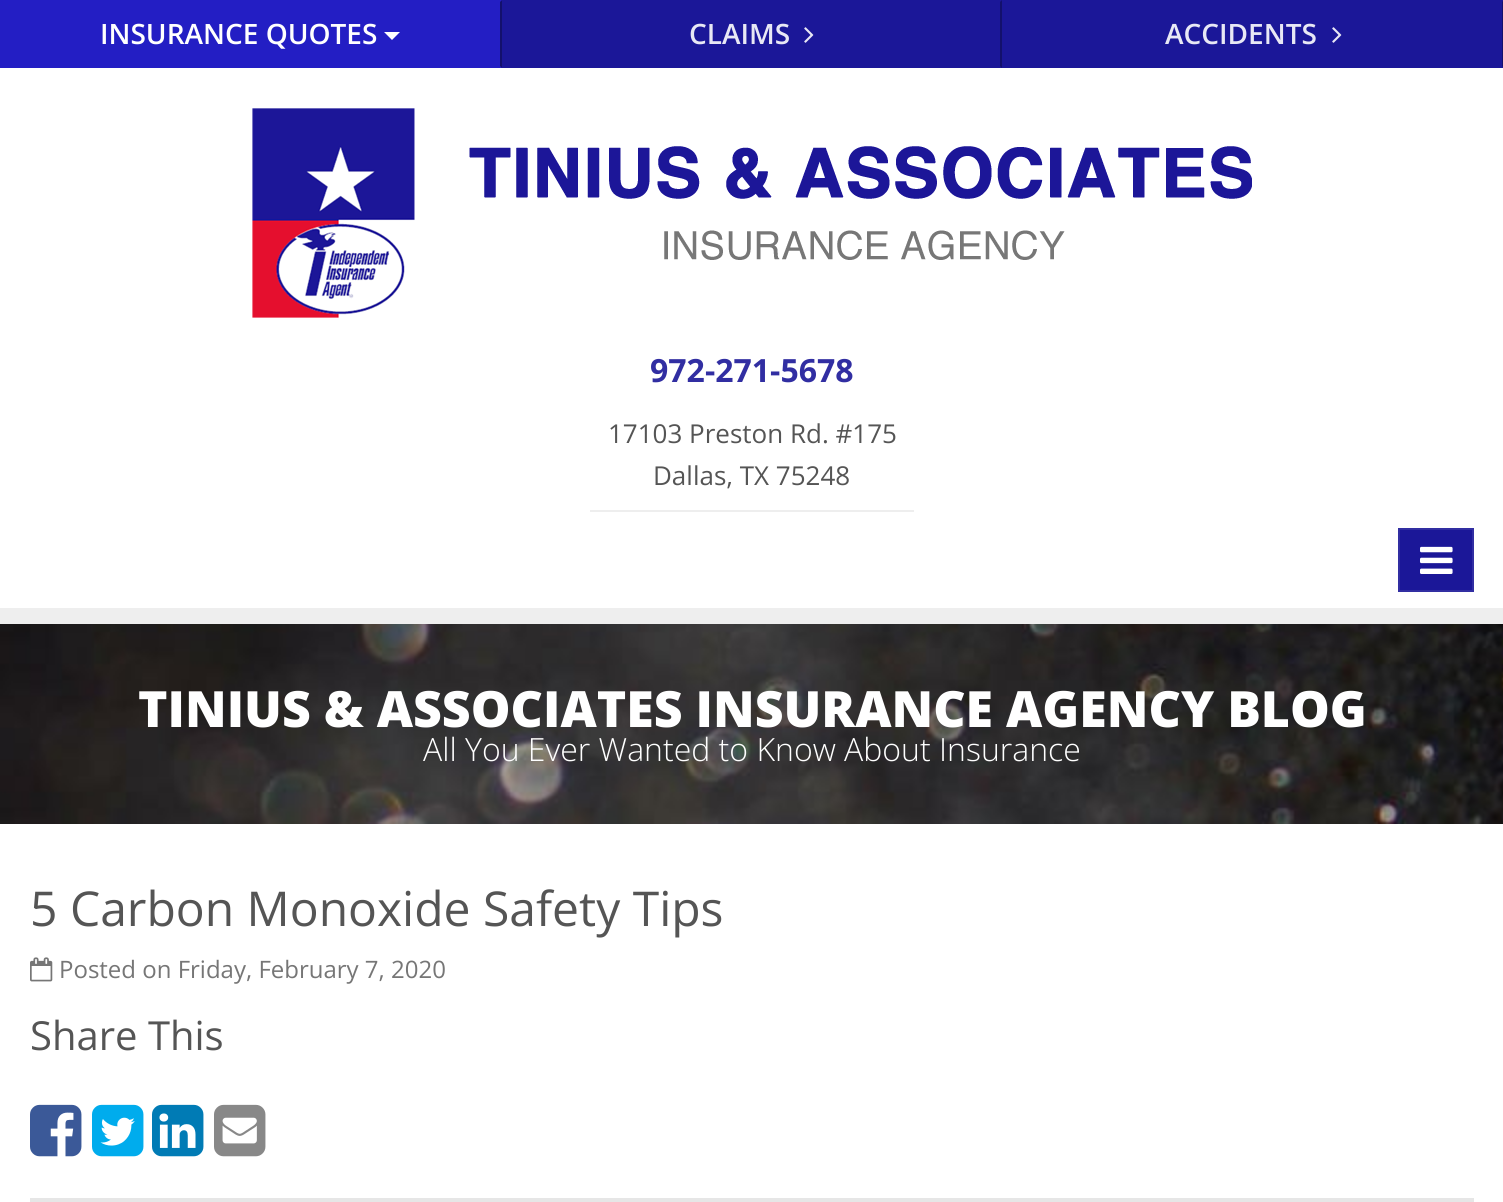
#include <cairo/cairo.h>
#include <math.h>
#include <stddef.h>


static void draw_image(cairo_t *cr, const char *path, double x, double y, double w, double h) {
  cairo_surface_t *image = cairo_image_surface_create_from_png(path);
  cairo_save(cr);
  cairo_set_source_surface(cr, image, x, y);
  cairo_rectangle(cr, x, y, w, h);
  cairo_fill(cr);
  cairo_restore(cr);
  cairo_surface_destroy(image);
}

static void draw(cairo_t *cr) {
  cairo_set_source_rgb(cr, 1, 1, 1);
  cairo_paint(cr);
  cairo_set_source_rgb(cr, 238 / 255.0, 238 / 255.0, 238 / 255.0);
  cairo_rectangle(cr, 0, 608, 1503, 16);
  cairo_fill(cr);
  cairo_set_source_rgb(cr, 35 / 255.0, 30 / 255.0, 196 / 255.0);
  cairo_rectangle(cr, 0, 0, 502, 68);
  cairo_fill(cr);
  cairo_set_source_rgb(cr, 19 / 255.0, 16 / 255.0, 108 / 255.0);
  cairo_new_path(cr);
  cairo_move_to(cr, 502, 0);
  cairo_line_to(cr, 502, 68);
  cairo_line_to(cr, 500, 66);
  cairo_line_to(cr, 500, 2);
  cairo_close_path(cr);
  cairo_fill(cr);
  cairo_set_source_rgb(cr, 1, 1, 1);
  cairo_new_path(cr);
  cairo_move_to(cr, 384, 32);
  cairo_line_to(cr, 400, 32);
  cairo_line_to(cr, 392, 40);
  cairo_close_path(cr);
  cairo_fill(cr);
  cairo_set_source_rgb(cr, 27 / 255.0, 23 / 255.0, 152 / 255.0);
  cairo_rectangle(cr, 502, 0, 1001, 68);
  cairo_fill(cr);
  cairo_set_source_rgb(cr, 19 / 255.0, 16 / 255.0, 108 / 255.0);
  cairo_new_path(cr);
  cairo_move_to(cr, 1002, 0);
  cairo_line_to(cr, 1002, 68);
  cairo_line_to(cr, 1000, 66);
  cairo_line_to(cr, 1000, 2);
  cairo_close_path(cr);
  cairo_fill(cr);
  draw_image(cr, "images/1.png", 804, 27, 10, 16);
  cairo_new_path(cr);
  cairo_move_to(cr, 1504, 0);
  cairo_line_to(cr, 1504, 68);
  cairo_line_to(cr, 1502, 66);
  cairo_line_to(cr, 1502, 2);
  cairo_close_path(cr);
  cairo_fill(cr);
  draw_image(cr, "images/1.png", 1332, 27, 10, 16);
  draw_image(cr, "images/2.png", 252, 108, 1000, 210);
  cairo_set_source_rgb(cr, 238 / 255.0, 238 / 255.0, 238 / 255.0);
  cairo_rectangle(cr, 590, 510, 324, 2);
  cairo_fill(cr);
  cairo_set_source_rgb(cr, 27 / 255.0, 23 / 255.0, 152 / 255.0);
  cairo_rectangle(cr, 1399, 529, 74, 62);
  cairo_fill_preserve(cr);
  cairo_set_source_rgb(cr, 49 / 255.0, 46 / 255.0, 162 / 255.0);
  cairo_stroke(cr);
  draw_image(cr, "images/3.png", 1420, 546, 33, 28);
  draw_image(cr, "images/4.png", 0, 624, 1503, 200);
  draw_image(cr, "images/5.png", 30, 957, 23, 25);
  draw_image(cr, "images/6.png", 30, 1104, 52, 53);
  draw_image(cr, "images/7.png", 92, 1104, 52, 53);
  draw_image(cr, "images/8.png", 152, 1104, 52, 53);
  draw_image(cr, "images/9.png", 214, 1104, 52, 53);
  cairo_set_source_rgb(cr, 230 / 255.0, 230 / 255.0, 230 / 255.0);
  cairo_rectangle(cr, 30, 1198, 1444, 4);
  cairo_fill(cr);
  cairo_select_font_face(cr, "Open Sans SemiBold", CAIRO_FONT_SLANT_NORMAL, CAIRO_FONT_WEIGHT_NORMAL);
  cairo_set_font_size(cr, 28);
  cairo_set_source_rgb(cr, 1, 1, 1);
  cairo_move_to(cr, 100, 44);
  cairo_show_text(cr, "INSURANCE QUOTES");
  cairo_set_source_rgb(cr, 232 / 255.0, 232 / 255.0, 245 / 255.0);
  cairo_move_to(cr, 689, 44);
  cairo_show_text(cr, "CLAIMS");
  cairo_move_to(cr, 1165, 44);
  cairo_show_text(cr, "ACCIDENTS");
  cairo_select_font_face(cr, "Open Sans", CAIRO_FONT_SLANT_NORMAL, CAIRO_FONT_WEIGHT_BOLD);
  cairo_set_font_size(cr, 32);
  cairo_set_source_rgb(cr, 49 / 255.0, 46 / 255.0, 162 / 255.0);
  cairo_move_to(cr, 650, 382);
  cairo_show_text(cr, "972-271-5678");
  cairo_select_font_face(cr, "Open Sans", CAIRO_FONT_SLANT_NORMAL, CAIRO_FONT_WEIGHT_NORMAL);
  cairo_set_font_size(cr, 26);
  cairo_set_source_rgb(cr, 85 / 255.0, 85 / 255.0, 85 / 255.0);
  cairo_move_to(cr, 608, 443);
  cairo_show_text(cr, "17103 Preston Rd. #175");
  cairo_move_to(cr, 653, 485);
  cairo_show_text(cr, "Dallas, TX 75248");
  cairo_select_font_face(cr, "Open Sans ExtraBold", CAIRO_FONT_SLANT_NORMAL, CAIRO_FONT_WEIGHT_NORMAL);
  cairo_set_font_size(cr, 50);
  cairo_set_source_rgb(cr, 1, 1, 1);
  cairo_move_to(cr, 138, 727);
  cairo_show_text(cr, "TINIUS & ASSOCIATES INSURANCE AGENCY BLOG");
  cairo_select_font_face(cr, "Open Sans Light", CAIRO_FONT_SLANT_NORMAL, CAIRO_FONT_WEIGHT_NORMAL);
  cairo_set_font_size(cr, 32);
  cairo_move_to(cr, 423, 761);
  cairo_show_text(cr, "All You Ever Wanted to Know About Insurance");
  cairo_select_font_face(cr, "Open Sans", CAIRO_FONT_SLANT_NORMAL, CAIRO_FONT_WEIGHT_NORMAL);
  cairo_set_font_size(cr, 48);
  cairo_set_source_rgb(cr, 85 / 255.0, 85 / 255.0, 85 / 255.0);
  cairo_move_to(cr, 30, 926);
  cairo_show_text(cr, "5 Carbon Monoxide Safety Tips");
  cairo_set_font_size(cr, 24);
  cairo_set_source_rgb(cr, 118 / 255.0, 118 / 255.0, 118 / 255.0);
  cairo_move_to(cr, 59, 978);
  cairo_show_text(cr, "Posted on Friday, February 7, 2020");
  cairo_set_font_size(cr, 40);
  cairo_set_source_rgb(cr, 85 / 255.0, 85 / 255.0, 85 / 255.0);
  cairo_move_to(cr, 30, 1050);
  cairo_show_text(cr, "Share This");
}

int main(void) {
  cairo_surface_t *surface = cairo_image_surface_create(CAIRO_FORMAT_RGB24, 1503, 1202);
  cairo_t *cr = cairo_create(surface);
  cairo_font_options_t *options = cairo_font_options_create();
  cairo_font_options_set_hint_metrics(options, CAIRO_HINT_METRICS_OFF);
  cairo_font_options_set_hint_style(options, CAIRO_HINT_STYLE_NONE);
  cairo_set_font_options(cr, options);
  cairo_set_miter_limit(cr, 4);
  draw(cr);
  cairo_surface_write_to_png(surface, "out.png");
  cairo_font_options_destroy(options);
  cairo_destroy(cr);
  cairo_surface_destroy(surface);
  return 0;
}
